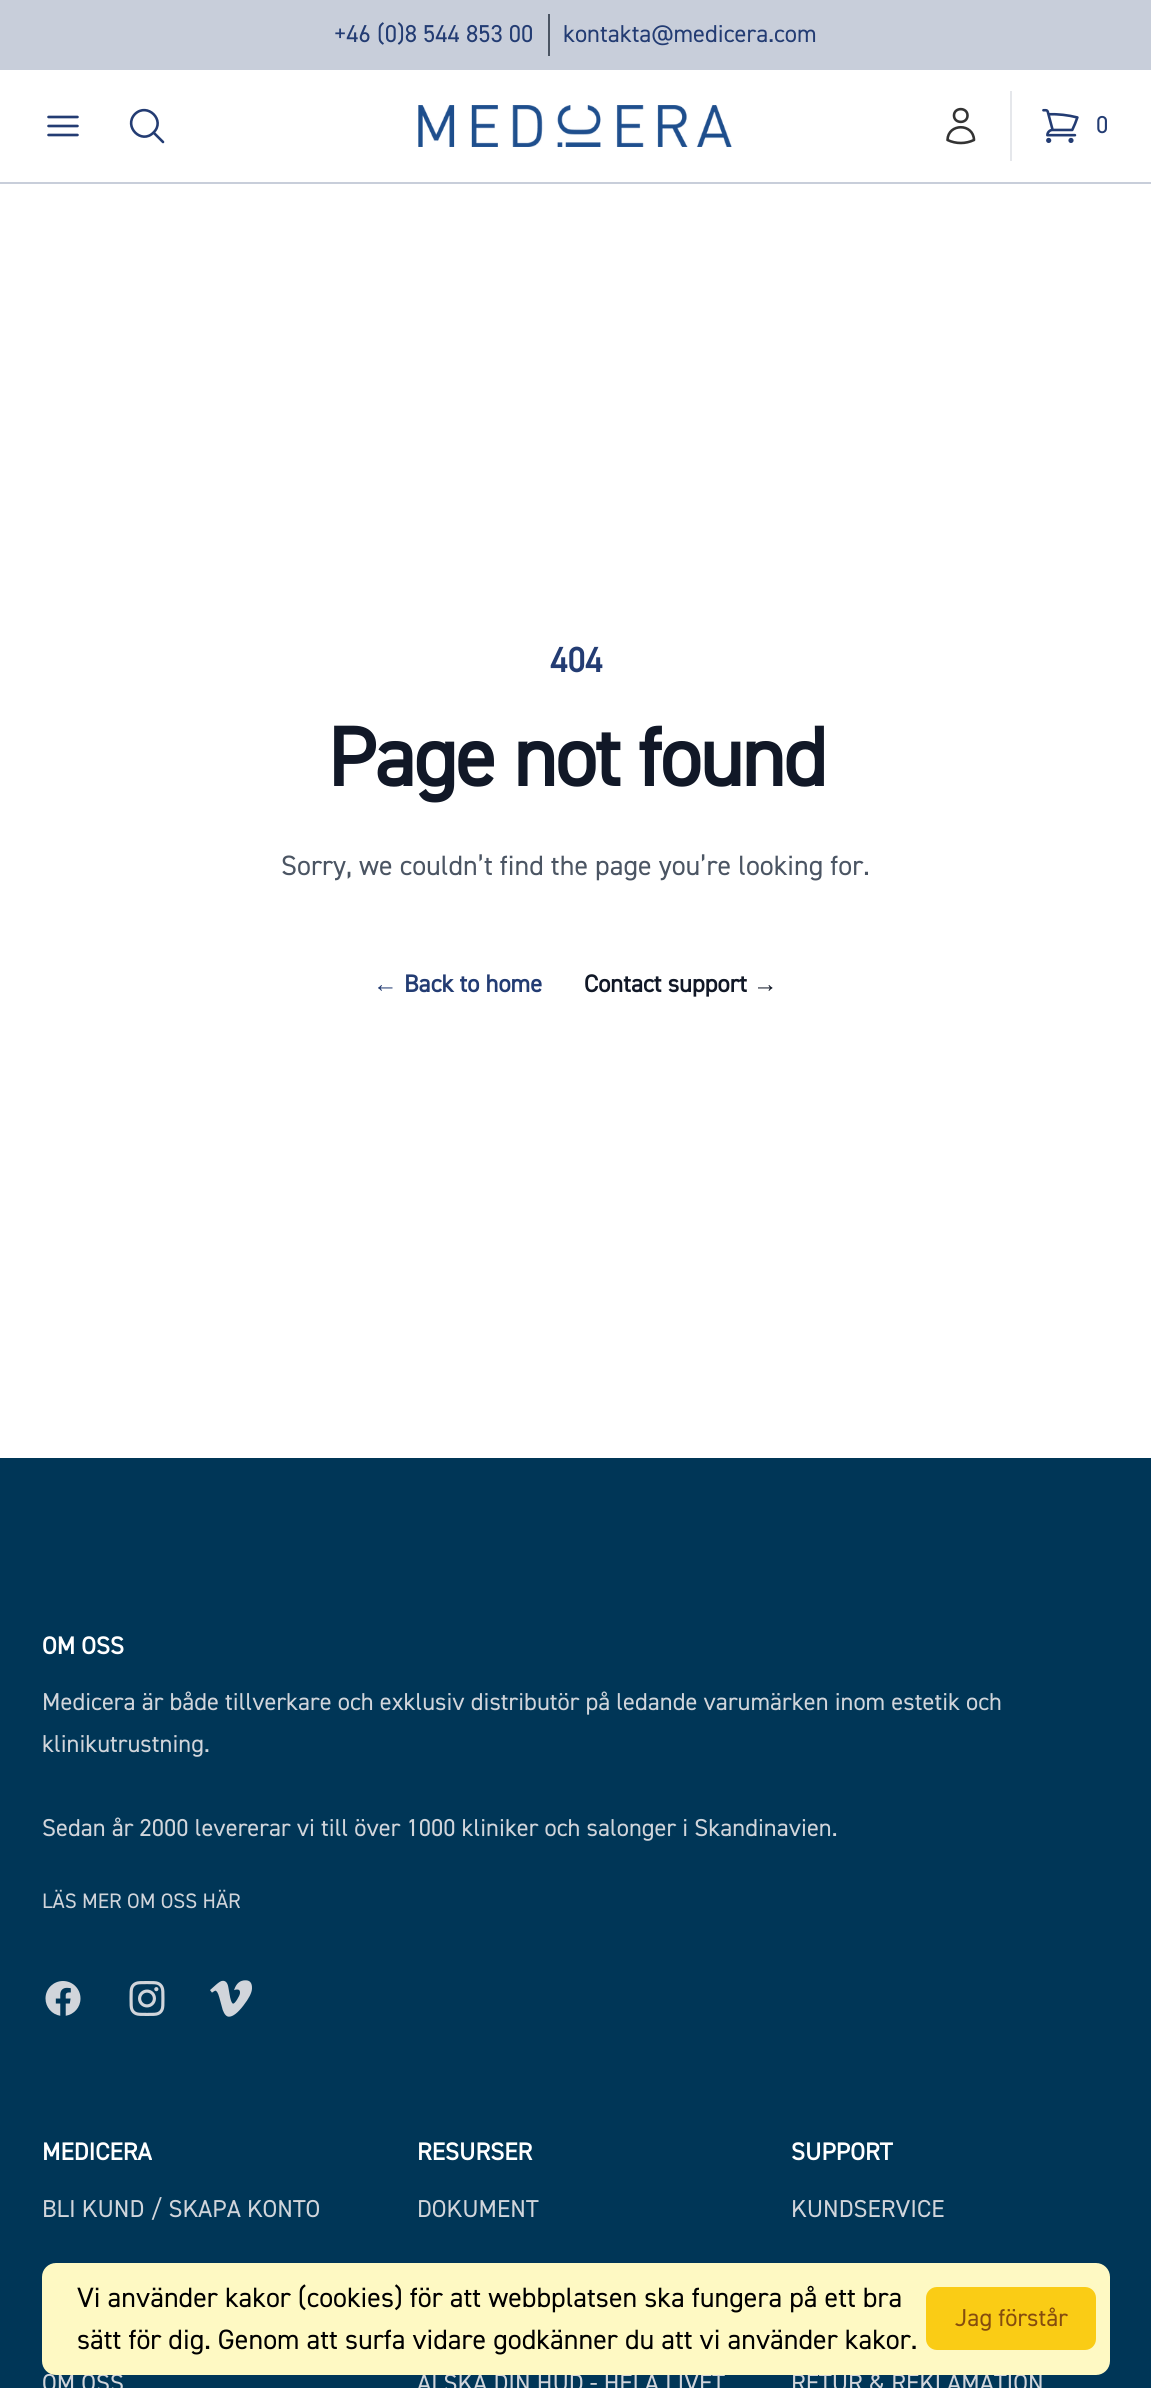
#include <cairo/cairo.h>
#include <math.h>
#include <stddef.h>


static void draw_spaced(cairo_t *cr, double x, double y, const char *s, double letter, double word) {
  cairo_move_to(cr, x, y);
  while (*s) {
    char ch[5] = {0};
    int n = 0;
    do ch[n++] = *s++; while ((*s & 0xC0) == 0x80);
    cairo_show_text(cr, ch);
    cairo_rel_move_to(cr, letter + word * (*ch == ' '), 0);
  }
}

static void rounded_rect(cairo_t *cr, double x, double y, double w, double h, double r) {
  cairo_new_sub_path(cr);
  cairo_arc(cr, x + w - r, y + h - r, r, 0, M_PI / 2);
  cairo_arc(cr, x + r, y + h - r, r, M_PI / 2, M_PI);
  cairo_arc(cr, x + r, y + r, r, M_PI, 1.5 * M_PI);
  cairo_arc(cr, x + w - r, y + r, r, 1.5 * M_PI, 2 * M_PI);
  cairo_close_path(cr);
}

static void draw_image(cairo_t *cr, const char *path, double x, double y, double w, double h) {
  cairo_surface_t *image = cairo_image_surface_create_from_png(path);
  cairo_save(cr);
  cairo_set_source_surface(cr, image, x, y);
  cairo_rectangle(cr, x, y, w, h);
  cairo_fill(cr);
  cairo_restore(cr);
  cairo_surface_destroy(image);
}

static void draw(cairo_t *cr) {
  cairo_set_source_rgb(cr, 0, 54 / 255.0, 87 / 255.0);
  cairo_paint(cr);
  cairo_set_source_rgb(cr, 200 / 255.0, 206 / 255.0, 218 / 255.0);
  cairo_rectangle(cr, 0, 0, 1151, 70);
  cairo_fill(cr);
  cairo_set_source_rgb(cr, 75 / 255.0, 85 / 255.0, 99 / 255.0);
  cairo_rectangle(cr, 548, 14, 2, 42);
  cairo_fill(cr);
  cairo_set_source_rgb(cr, 1, 1, 1);
  cairo_rectangle(cr, 0, 70, 1151, 112);
  cairo_fill(cr);
  cairo_set_source_rgb(cr, 200 / 255.0, 206 / 255.0, 218 / 255.0);
  cairo_rectangle(cr, 0, 182, 1151, 2);
  cairo_fill(cr);
  cairo_new_path(cr);
  cairo_move_to(cr, 48.5, 117);
  cairo_line_to(cr, 77.5, 117);
  cairo_move_to(cr, 48.5, 126);
  cairo_line_to(cr, 77.5, 126);
  cairo_move_to(cr, 48.5, 135);
  cairo_line_to(cr, 77.5, 135);
  cairo_set_source_rgb(cr, 35 / 255.0, 60 / 255.0, 115 / 255.0);
  cairo_set_line_width(cr, 2.6);
  cairo_set_line_cap(cr, CAIRO_LINE_CAP_ROUND);
  cairo_set_line_join(cr, CAIRO_LINE_JOIN_ROUND);
  cairo_stroke(cr);
  cairo_new_path(cr);
  cairo_move_to(cr, 163, 142);
  cairo_line_to(cr, 153.5, 132.5);
  cairo_move_to(cr, 153.5, 132.5);
  cairo_curve_to(cr, 166, 120.5, 147.5, 102, 135, 114);
  cairo_curve_to(cr, 123, 126.5, 141.5, 145, 153.5, 132.5);
  cairo_close_path(cr);
  cairo_stroke(cr);
  draw_image(cr, "images/1.png", 418, 105, 314, 42);
  cairo_new_path(cr);
  cairo_move_to(cr, 967.5, 115.5);
  cairo_curve_to(cr, 967.5, 124, 954, 124, 954, 115.5);
  cairo_curve_to(cr, 954, 107, 967.5, 107, 967.5, 115.5);
  cairo_close_path(cr);
  cairo_move_to(cr, 947.5, 140);
  cairo_curve_to(cr, 948, 123, 973.5, 123, 974, 140);
  cairo_curve_to(cr, 965.5, 144, 956, 144, 947.5, 140);
  cairo_close_path(cr);
  cairo_set_source_rgb(cr, 51 / 255.0, 51 / 255.0, 51 / 255.0);
  cairo_stroke(cr);
  cairo_set_source_rgb(cr, 229 / 255.0, 231 / 255.0, 235 / 255.0);
  cairo_rectangle(cr, 1010, 91, 2, 70);
  cairo_fill(cr);
  draw_image(cr, "images/2.png", 1042, 108, 37, 35);
  cairo_set_source_rgb(cr, 1, 1, 1);
  cairo_rectangle(cr, 0, 184, 1151, 1274);
  cairo_fill(cr);
  draw_image(cr, "images/3.png", 45, 1981, 36, 35);
  draw_image(cr, "images/4.png", 129, 1981, 36, 35);
  draw_image(cr, "images/5.png", 210, 1980, 42, 37);
  cairo_select_font_face(cr, "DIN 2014", CAIRO_FONT_SLANT_NORMAL, CAIRO_FONT_WEIGHT_NORMAL);
  cairo_set_font_size(cr, 24.5);
  cairo_set_source_rgb(cr, 35 / 255.0, 60 / 255.0, 115 / 255.0);
  cairo_move_to(cr, 334, 42);
  cairo_show_text(cr, "+46 (0)8 544 853 00");
  cairo_move_to(cr, 563, 42);
  cairo_show_text(cr, "kontakta@medicera.com");
  cairo_move_to(cr, 1096, 133);
  cairo_show_text(cr, "0");
  cairo_select_font_face(cr, "DIN 2014", CAIRO_FONT_SLANT_NORMAL, CAIRO_FONT_WEIGHT_BOLD);
  cairo_set_font_size(cr, 35);
  cairo_move_to(cr, 550, 672);
  cairo_show_text(cr, "404");
  cairo_set_font_size(cr, 84);
  cairo_set_source_rgb(cr, 17 / 255.0, 24 / 255.0, 39 / 255.0);
  draw_spaced(cr, 327, 786, "Page not found", -2.1, 0);
  cairo_select_font_face(cr, "DIN 2014", CAIRO_FONT_SLANT_NORMAL, CAIRO_FONT_WEIGHT_NORMAL);
  cairo_set_font_size(cr, 28);
  cairo_set_source_rgb(cr, 75 / 255.0, 85 / 255.0, 99 / 255.0);
  cairo_move_to(cr, 281, 875);
  cairo_show_text(cr, "Sorry, we couldn’t find the page you’re looking for.");
  cairo_select_font_face(cr, "Liberation Sans", CAIRO_FONT_SLANT_NORMAL, CAIRO_FONT_WEIGHT_BOLD);
  cairo_set_font_size(cr, 24.5);
  cairo_set_source_rgb(cr, 35 / 255.0, 60 / 255.0, 115 / 255.0);
  cairo_move_to(cr, 373, 992);
  cairo_show_text(cr, "←");
  cairo_select_font_face(cr, "DIN 2014", CAIRO_FONT_SLANT_NORMAL, CAIRO_FONT_WEIGHT_BOLD);
  cairo_move_to(cr, 404, 992);
  cairo_show_text(cr, "Back to home");
  cairo_set_source_rgb(cr, 17 / 255.0, 24 / 255.0, 39 / 255.0);
  cairo_move_to(cr, 584, 992);
  cairo_show_text(cr, "Contact support");
  cairo_select_font_face(cr, "Liberation Sans", CAIRO_FONT_SLANT_NORMAL, CAIRO_FONT_WEIGHT_BOLD);
  cairo_move_to(cr, 753, 992);
  cairo_show_text(cr, "→");
  cairo_select_font_face(cr, "DIN 2014", CAIRO_FONT_SLANT_NORMAL, CAIRO_FONT_WEIGHT_BOLD);
  cairo_set_source_rgb(cr, 1, 1, 1);
  cairo_move_to(cr, 42, 1654);
  cairo_show_text(cr, "OM OSS");
  cairo_select_font_face(cr, "DIN 2014", CAIRO_FONT_SLANT_NORMAL, CAIRO_FONT_WEIGHT_NORMAL);
  cairo_set_source_rgb(cr, 209 / 255.0, 213 / 255.0, 219 / 255.0);
  cairo_move_to(cr, 42, 1710);
  cairo_show_text(cr, "Medicera är både tillverkare och exklusiv distributör på ledande varumärken inom estetik och");
  cairo_move_to(cr, 42, 1752);
  cairo_show_text(cr, "klinikutrustning.");
  cairo_move_to(cr, 42, 1836);
  cairo_show_text(cr, "Sedan år 2000 levererar vi till över 1000 kliniker och salonger i Skandinavien.");
  cairo_set_font_size(cr, 21);
  cairo_move_to(cr, 42, 1908);
  cairo_show_text(cr, "LÄS MER OM OSS HÄR");
  cairo_select_font_face(cr, "DIN 2014", CAIRO_FONT_SLANT_NORMAL, CAIRO_FONT_WEIGHT_BOLD);
  cairo_set_font_size(cr, 24.5);
  cairo_set_source_rgb(cr, 1, 1, 1);
  cairo_move_to(cr, 42, 2160);
  cairo_show_text(cr, "MEDICERA");
  cairo_select_font_face(cr, "DIN 2014", CAIRO_FONT_SLANT_NORMAL, CAIRO_FONT_WEIGHT_NORMAL);
  cairo_set_source_rgb(cr, 209 / 255.0, 213 / 255.0, 219 / 255.0);
  cairo_move_to(cr, 42, 2217);
  cairo_show_text(cr, "BLI KUND / SKAPA KONTO");
  cairo_move_to(cr, 42, 2391);
  cairo_show_text(cr, "OM OSS");
  cairo_select_font_face(cr, "DIN 2014", CAIRO_FONT_SLANT_NORMAL, CAIRO_FONT_WEIGHT_BOLD);
  cairo_set_source_rgb(cr, 1, 1, 1);
  cairo_move_to(cr, 417, 2160);
  cairo_show_text(cr, "RESURSER");
  cairo_select_font_face(cr, "DIN 2014", CAIRO_FONT_SLANT_NORMAL, CAIRO_FONT_WEIGHT_NORMAL);
  cairo_set_source_rgb(cr, 209 / 255.0, 213 / 255.0, 219 / 255.0);
  cairo_move_to(cr, 417, 2217);
  cairo_show_text(cr, "DOKUMENT");
  cairo_move_to(cr, 417, 2391);
  cairo_show_text(cr, "ÄLSKA DIN HUD - HELA LIVET");
  cairo_select_font_face(cr, "DIN 2014", CAIRO_FONT_SLANT_NORMAL, CAIRO_FONT_WEIGHT_BOLD);
  cairo_set_source_rgb(cr, 1, 1, 1);
  cairo_move_to(cr, 791, 2160);
  cairo_show_text(cr, "SUPPORT");
  cairo_select_font_face(cr, "DIN 2014", CAIRO_FONT_SLANT_NORMAL, CAIRO_FONT_WEIGHT_NORMAL);
  cairo_set_source_rgb(cr, 209 / 255.0, 213 / 255.0, 219 / 255.0);
  cairo_move_to(cr, 791, 2217);
  cairo_show_text(cr, "KUNDSERVICE");
  cairo_move_to(cr, 791, 2391);
  cairo_show_text(cr, "RETUR & REKLAMATION");
  cairo_set_source_rgb(cr, 254 / 255.0, 249 / 255.0, 195 / 255.0);
  rounded_rect(cr, 42, 2263, 1068, 112, 14);
  cairo_fill(cr);
  cairo_set_font_size(cr, 28);
  cairo_set_source_rgb(cr, 0, 0, 0);
  cairo_move_to(cr, 77, 2307);
  cairo_show_text(cr, "Vi använder kakor (cookies) för att webbplatsen ska fungera på ett bra");
  cairo_move_to(cr, 77, 2349);
  cairo_show_text(cr, "sätt för dig. Genom att surfa vidare godkänner du att vi använder kakor.");
  cairo_set_source_rgb(cr, 250 / 255.0, 204 / 255.0, 21 / 255.0);
  rounded_rect(cr, 926, 2287, 170, 63, 11);
  cairo_fill(cr);
  cairo_set_font_size(cr, 24.5);
  cairo_set_source_rgb(cr, 133 / 255.0, 77 / 255.0, 14 / 255.0);
  cairo_move_to(cr, 955, 2326);
  cairo_show_text(cr, "Jag förstår");
}

int main(void) {
  cairo_surface_t *surface = cairo_image_surface_create(CAIRO_FORMAT_RGB24, 1151, 2388);
  cairo_t *cr = cairo_create(surface);
  cairo_font_options_t *options = cairo_font_options_create();
  cairo_font_options_set_hint_metrics(options, CAIRO_HINT_METRICS_OFF);
  cairo_font_options_set_hint_style(options, CAIRO_HINT_STYLE_NONE);
  cairo_set_font_options(cr, options);
  cairo_set_miter_limit(cr, 4);
  draw(cr);
  cairo_surface_write_to_png(surface, "out.png");
  cairo_font_options_destroy(options);
  cairo_destroy(cr);
  cairo_surface_destroy(surface);
  return 0;
}
